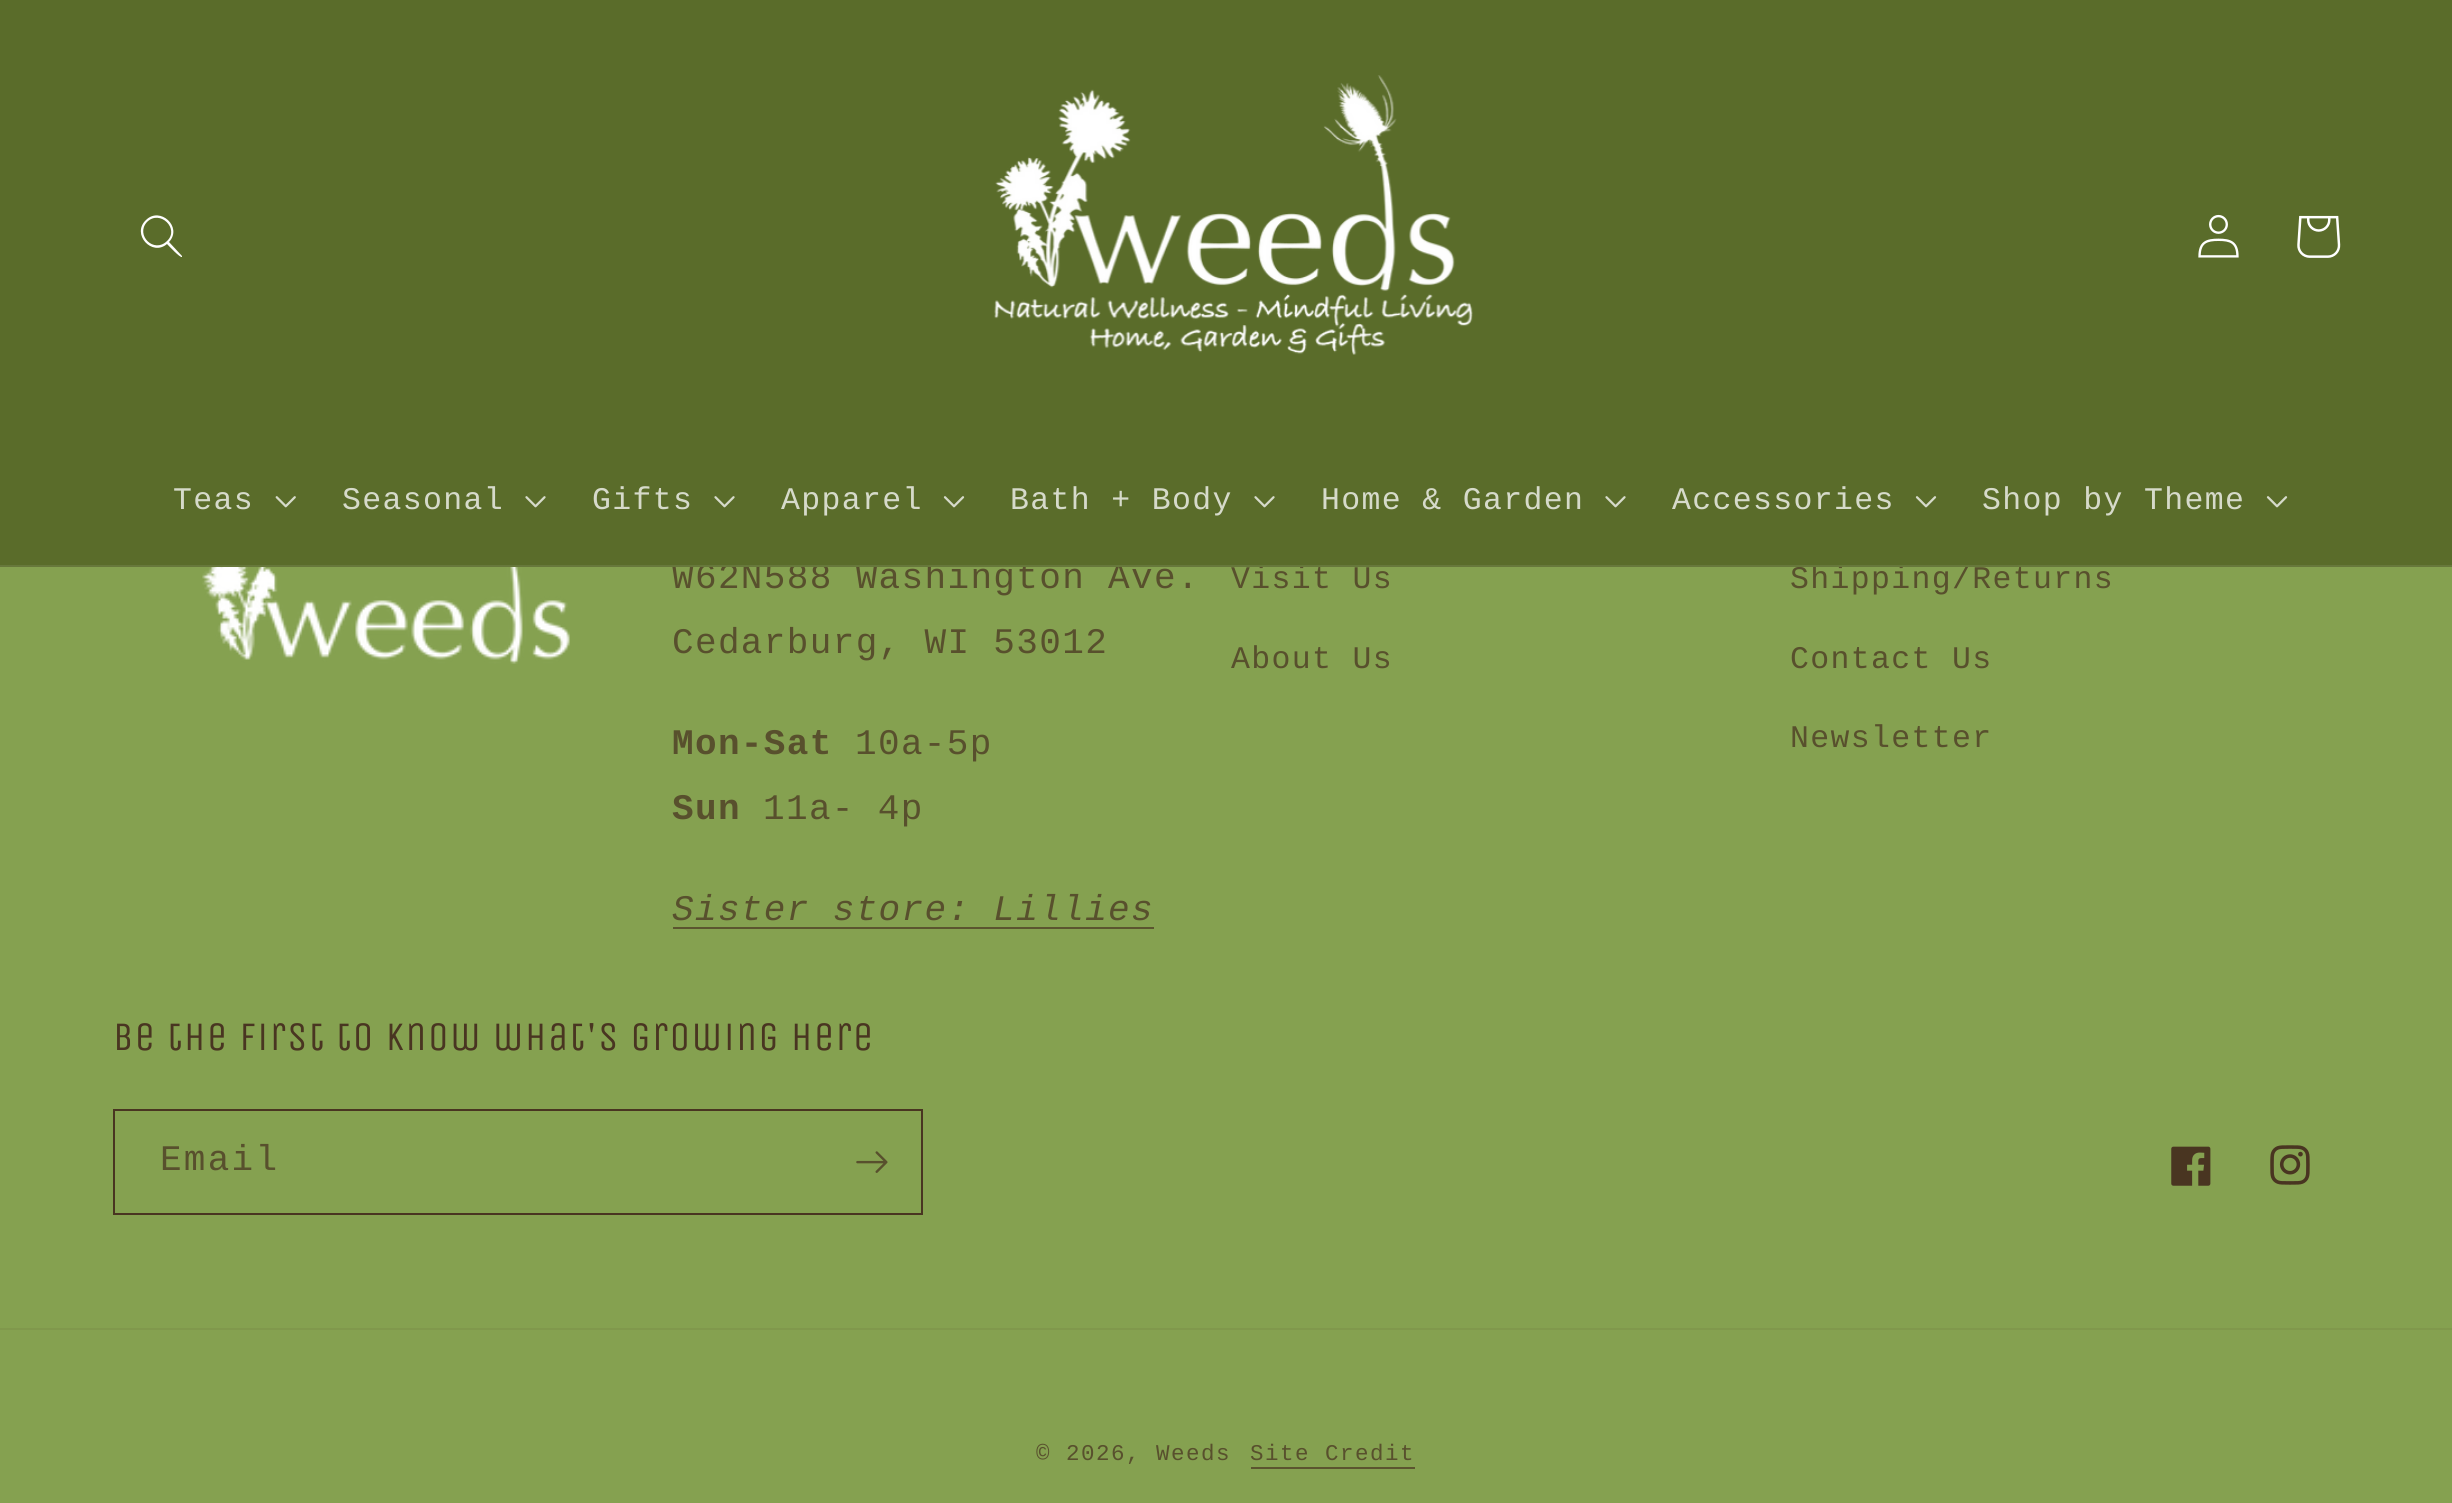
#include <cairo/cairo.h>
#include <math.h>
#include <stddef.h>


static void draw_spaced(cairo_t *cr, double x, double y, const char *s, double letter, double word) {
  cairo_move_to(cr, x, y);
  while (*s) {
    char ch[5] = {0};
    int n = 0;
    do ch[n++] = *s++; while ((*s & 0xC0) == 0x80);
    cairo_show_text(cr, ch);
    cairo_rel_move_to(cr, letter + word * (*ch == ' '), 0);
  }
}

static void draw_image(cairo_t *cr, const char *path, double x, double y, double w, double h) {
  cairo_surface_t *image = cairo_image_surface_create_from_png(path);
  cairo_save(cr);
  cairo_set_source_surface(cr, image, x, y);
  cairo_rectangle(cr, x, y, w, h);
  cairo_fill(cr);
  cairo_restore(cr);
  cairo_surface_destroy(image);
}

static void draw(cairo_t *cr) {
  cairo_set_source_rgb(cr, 133 / 255.0, 161 / 255.0, 80 / 255.0);
  cairo_paint(cr);
  draw_image(cr, "images/7.png", 202, 567, 368, 97);
  cairo_set_source_rgb(cr, 91 / 255.0, 85 / 255.0, 47 / 255.0);
  cairo_rectangle(cr, 673, 927, 481, 2);
  cairo_fill(cr);
  cairo_rectangle(cr, 114, 1110, 808, 104);
  cairo_set_source_rgb(cr, 73 / 255.0, 53 / 255.0, 33 / 255.0);
  cairo_stroke(cr);
  draw_image(cr, "images/8.png", 856, 1151, 32, 22);
  draw_image(cr, "images/9.png", 2171, 1146, 40, 40);
  draw_image(cr, "images/10.png", 2270, 1145, 40, 40);
  cairo_set_source_rgb(cr, 128 / 255.0, 152 / 255.0, 76 / 255.0);
  cairo_rectangle(cr, 0, 1328, 2452, 2);
  cairo_fill(cr);
  cairo_set_source_rgb(cr, 91 / 255.0, 85 / 255.0, 47 / 255.0);
  cairo_rectangle(cr, 1251, 1467, 164, 2);
  cairo_fill(cr);
  cairo_select_font_face(cr, "Liberation Mono", CAIRO_FONT_SLANT_NORMAL, CAIRO_FONT_WEIGHT_NORMAL);
  cairo_set_font_size(cr, 36);
  cairo_set_source_rgb(cr, 88 / 255.0, 80 / 255.0, 45 / 255.0);
  draw_spaced(cr, 672, 588, "W62N588 Washington Ave.", 1.35, 0);
  cairo_set_source_rgb(cr, 90 / 255.0, 108 / 255.0, 42 / 255.0);
  cairo_rectangle(cr, 0, 0, 2452, 565);
  cairo_fill(cr);
  draw_image(cr, "images/3.png", 2297, 215, 44, 43);
  draw_image(cr, "images/6.png", 2266, 496, 22, 12);
  cairo_set_font_size(cr, 31.5);
  cairo_set_source_rgb(cr, 214 / 255.0, 218 / 255.0, 202 / 255.0);
  draw_spaced(cr, 1982, 509, "Shop by Theme", 1.35, 0);
  draw_image(cr, "images/6.png", 1915, 496, 22, 12);
  draw_spaced(cr, 1672, 509, "Accessories", 1.35, 0);
  draw_image(cr, "images/5.png", 1605, 496, 21, 12);
  draw_spaced(cr, 1321, 509, "Home & Garden", 1.35, 0);
  draw_image(cr, "images/5.png", 1254, 496, 21, 12);
  draw_spaced(cr, 1010, 509, "Bath + Body", 1.35, 0);
  draw_image(cr, "images/6.png", 943, 496, 22, 12);
  draw_spaced(cr, 781, 509, "Apparel", 1.35, 0);
  draw_image(cr, "images/5.png", 714, 496, 21, 12);
  draw_spaced(cr, 592, 509, "Gifts", 1.35, 0);
  draw_image(cr, "images/5.png", 525, 496, 21, 12);
  draw_spaced(cr, 342, 509, "Seasonal", 1.35, 0);
  draw_image(cr, "images/4.png", 275, 496, 21, 12);
  draw_spaced(cr, 173, 509, "Teas", 1.35, 0);
  cairo_set_source_rgb(cr, 1, 1, 1);
  cairo_set_fill_rule(cr, CAIRO_FILL_RULE_EVEN_ODD);
  cairo_new_path(cr);
  cairo_move_to(cr, 167, 241);
  cairo_curve_to(cr, 154, 254, 135, 235, 147, 222);
  cairo_curve_to(cr, 160, 209, 180, 229, 167, 241);
  cairo_close_path(cr);
  cairo_move_to(cr, 167, 244);
  cairo_curve_to(cr, 152, 257, 131, 234, 146, 220);
  cairo_curve_to(cr, 160, 206, 183, 227, 169, 242);
  cairo_line_to(cr, 182, 256);
  cairo_line_to(cr, 182, 257);
  cairo_curve_to(cr, 180, 258, 169, 246, 167, 244);
  cairo_close_path(cr);
  cairo_fill(cr);
  draw_image(cr, "images/2.png", 2198, 214, 41, 44);
  draw_image(cr, "images/1.png", 994, 75, 479, 280);
  cairo_set_font_size(cr, 36);
  cairo_set_source_rgb(cr, 88 / 255.0, 80 / 255.0, 45 / 255.0);
  draw_spaced(cr, 672, 653, "Cedarburg, WI 53012", 1.35, 0);
  cairo_select_font_face(cr, "Liberation Mono", CAIRO_FONT_SLANT_NORMAL, CAIRO_FONT_WEIGHT_BOLD);
  draw_spaced(cr, 672, 754, "Mon-Sat", 1.35, 0);
  cairo_select_font_face(cr, "Liberation Mono", CAIRO_FONT_SLANT_NORMAL, CAIRO_FONT_WEIGHT_NORMAL);
  draw_spaced(cr, 855, 754, "10a-5p", 1.35, 0);
  cairo_select_font_face(cr, "Liberation Mono", CAIRO_FONT_SLANT_NORMAL, CAIRO_FONT_WEIGHT_BOLD);
  draw_spaced(cr, 672, 819, "Sun", 1.35, 0);
  cairo_select_font_face(cr, "Liberation Mono", CAIRO_FONT_SLANT_NORMAL, CAIRO_FONT_WEIGHT_NORMAL);
  draw_spaced(cr, 763, 819, "11a- 4p", 1.35, 0);
  cairo_select_font_face(cr, "Liberation Mono", CAIRO_FONT_SLANT_ITALIC, CAIRO_FONT_WEIGHT_NORMAL);
  draw_spaced(cr, 672, 920, "Sister store: Lillies", 1.35, 0);
  cairo_select_font_face(cr, "Liberation Mono", CAIRO_FONT_SLANT_NORMAL, CAIRO_FONT_WEIGHT_NORMAL);
  cairo_set_font_size(cr, 31.5);
  draw_spaced(cr, 1231, 588, "Visit Us", 1.35, 0);
  draw_spaced(cr, 1231, 668, "About Us", 1.35, 0);
  draw_spaced(cr, 1790, 588, "Shipping/Returns", 1.35, 0);
  cairo_set_source_rgb(cr, 103 / 255.0, 120 / 255.0, 59 / 255.0);
  cairo_rectangle(cr, 0, 565, 2452, 2);
  cairo_fill(cr);
  cairo_set_source_rgb(cr, 88 / 255.0, 80 / 255.0, 45 / 255.0);
  draw_spaced(cr, 1790, 668, "Contact Us", 1.35, 0);
  draw_spaced(cr, 1790, 747, "Newsletter", 1.35, 0);
  cairo_select_font_face(cr, "Unica One", CAIRO_FONT_SLANT_NORMAL, CAIRO_FONT_WEIGHT_NORMAL);
  cairo_set_font_size(cr, 40.5);
  cairo_set_source_rgb(cr, 73 / 255.0, 53 / 255.0, 33 / 255.0);
  draw_spaced(cr, 113, 1050, "Be the first to know what's growing here", 1.35, 0);
  cairo_select_font_face(cr, "Liberation Mono", CAIRO_FONT_SLANT_NORMAL, CAIRO_FONT_WEIGHT_NORMAL);
  cairo_set_font_size(cr, 36);
  cairo_set_source_rgb(cr, 88 / 255.0, 80 / 255.0, 45 / 255.0);
  draw_spaced(cr, 160, 1170, "Email", 2.25, 0);
  cairo_set_font_size(cr, 22.5);
  draw_spaced(cr, 1036, 1460, "© 2026, Weeds", 1.5, 0);
  draw_spaced(cr, 1250, 1460, "Site Credit", 1.5, 0);
}

int main(void) {
  cairo_surface_t *surface = cairo_image_surface_create(CAIRO_FORMAT_RGB24, 2452, 1503);
  cairo_t *cr = cairo_create(surface);
  cairo_font_options_t *options = cairo_font_options_create();
  cairo_font_options_set_hint_metrics(options, CAIRO_HINT_METRICS_OFF);
  cairo_font_options_set_hint_style(options, CAIRO_HINT_STYLE_NONE);
  cairo_set_font_options(cr, options);
  cairo_set_miter_limit(cr, 4);
  draw(cr);
  cairo_surface_write_to_png(surface, "out.png");
  cairo_font_options_destroy(options);
  cairo_destroy(cr);
  cairo_surface_destroy(surface);
  return 0;
}
